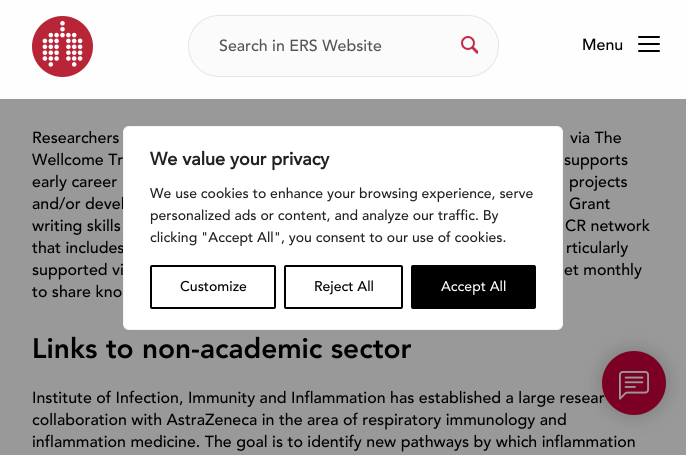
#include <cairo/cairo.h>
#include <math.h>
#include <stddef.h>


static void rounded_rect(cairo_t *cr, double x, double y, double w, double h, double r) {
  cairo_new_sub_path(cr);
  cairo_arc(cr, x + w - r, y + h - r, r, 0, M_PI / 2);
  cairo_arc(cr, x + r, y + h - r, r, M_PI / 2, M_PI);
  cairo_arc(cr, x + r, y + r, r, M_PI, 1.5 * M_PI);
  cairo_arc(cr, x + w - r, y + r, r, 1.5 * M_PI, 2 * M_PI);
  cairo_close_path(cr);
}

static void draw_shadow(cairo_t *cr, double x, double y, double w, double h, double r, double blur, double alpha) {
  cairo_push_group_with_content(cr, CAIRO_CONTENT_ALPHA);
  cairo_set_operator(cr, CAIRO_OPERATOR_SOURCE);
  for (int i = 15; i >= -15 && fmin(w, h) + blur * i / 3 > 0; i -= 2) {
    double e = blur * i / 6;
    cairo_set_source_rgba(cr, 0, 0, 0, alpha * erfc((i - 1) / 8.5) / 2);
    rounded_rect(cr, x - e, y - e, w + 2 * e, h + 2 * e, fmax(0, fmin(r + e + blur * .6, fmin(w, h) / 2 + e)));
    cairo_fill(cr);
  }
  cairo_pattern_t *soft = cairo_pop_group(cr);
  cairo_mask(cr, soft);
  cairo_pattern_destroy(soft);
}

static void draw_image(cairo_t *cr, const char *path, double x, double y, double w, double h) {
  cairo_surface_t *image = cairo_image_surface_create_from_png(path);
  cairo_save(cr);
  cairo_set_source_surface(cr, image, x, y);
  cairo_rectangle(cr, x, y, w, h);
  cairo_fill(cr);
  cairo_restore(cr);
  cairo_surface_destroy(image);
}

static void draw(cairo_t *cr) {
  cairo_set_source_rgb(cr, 153 / 255.0, 153 / 255.0, 153 / 255.0);
  cairo_paint(cr);
  cairo_set_source_rgb(cr, 254 / 255.0, 254 / 255.0, 254 / 255.0);
  cairo_rectangle(cr, 0, 0, 686, 99);
  cairo_fill(cr);
  draw_image(cr, "images/1.png", 32, 16, 61, 61);
  cairo_set_source_rgb(cr, 251 / 255.0, 251 / 255.0, 251 / 255.0);
  rounded_rect(cr, 188.5, 15.5, 310, 61, 30.5);
  cairo_fill_preserve(cr);
  cairo_set_source_rgb(cr, 228 / 255.0, 229 / 255.0, 233 / 255.0);
  cairo_set_line_width(cr, 1);
  cairo_stroke(cr);
  draw_image(cr, "images/2.png", 461, 36, 18, 18);
  cairo_set_source_rgb(cr, 0, 0, 0);
  rounded_rect(cr, 638, 43, 22, 2, 1);
  cairo_fill(cr);
  rounded_rect(cr, 638, 36, 22, 2, 1);
  cairo_fill(cr);
  rounded_rect(cr, 638, 50, 22, 2, 1);
  cairo_fill(cr);
  cairo_set_source_rgb(cr, 0, 0, 0);
  draw_shadow(cr, 602, 351, 64, 64, 32, 10, 0.2);
  cairo_select_font_face(cr, "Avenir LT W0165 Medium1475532 Medium", CAIRO_FONT_SLANT_NORMAL, CAIRO_FONT_WEIGHT_NORMAL);
  cairo_set_font_size(cr, 16);
  cairo_set_source_rgb(cr, 85 / 255.0, 85 / 255.0, 85 / 255.0);
  cairo_move_to(cr, 219, 51);
  cairo_show_text(cr, "Search in ERS Website");
  cairo_set_source_rgb(cr, 0, 0, 0);
  cairo_move_to(cr, 582, 50);
  cairo_show_text(cr, "Menu");
  cairo_move_to(cr, 32, 143);
  cairo_show_text(cr, "Researchers");
  cairo_move_to(cr, 570, 143);
  cairo_show_text(cr, "via The");
  cairo_move_to(cr, 32, 165);
  cairo_show_text(cr, "Wellcome Tr");
  cairo_move_to(cr, 564, 165);
  cairo_show_text(cr, "supports");
  cairo_move_to(cr, 32, 187);
  cairo_show_text(cr, "early career");
  cairo_move_to(cr, 569, 187);
  cairo_show_text(cr, "projects");
  cairo_move_to(cr, 32, 209);
  cairo_show_text(cr, "and/or devel");
  cairo_move_to(cr, 569, 209);
  cairo_show_text(cr, "Grant");
  cairo_move_to(cr, 32, 231);
  cairo_show_text(cr, "writing skills");
  cairo_move_to(cr, 565, 231);
  cairo_show_text(cr, "CR network");
  cairo_move_to(cr, 32, 253);
  cairo_show_text(cr, "that includes");
  cairo_move_to(cr, 566, 253);
  cairo_show_text(cr, "rticularly");
  cairo_move_to(cr, 32, 275);
  cairo_show_text(cr, "supported vi");
  cairo_move_to(cr, 564, 275);
  cairo_show_text(cr, "et monthly");
  cairo_move_to(cr, 32, 297);
  cairo_show_text(cr, "to share kno");
  cairo_select_font_face(cr, "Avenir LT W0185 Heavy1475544 Black", CAIRO_FONT_SLANT_NORMAL, CAIRO_FONT_WEIGHT_NORMAL);
  cairo_set_font_size(cr, 28);
  cairo_move_to(cr, 32, 358);
  cairo_show_text(cr, "Links to non-academic sector");
  cairo_select_font_face(cr, "Avenir LT W0165 Medium1475532 Medium", CAIRO_FONT_SLANT_NORMAL, CAIRO_FONT_WEIGHT_NORMAL);
  cairo_set_font_size(cr, 16);
  cairo_move_to(cr, 32, 403);
  cairo_show_text(cr, "Institute of Infection, Immunity and Inflammation has established a large resear");
  cairo_move_to(cr, 32, 425);
  cairo_show_text(cr, "collaboration with AstraZeneca in the area of respiratory immunology and");
  cairo_move_to(cr, 32, 447);
  cairo_show_text(cr, "inflammation medicine. The goal is to identify new pathways by which inflammation");
  cairo_set_source_rgb(cr, 1, 1, 1);
  rounded_rect(cr, 123.5, 126.5, 439, 203, 5.5);
  cairo_fill_preserve(cr);
  cairo_set_source_rgb(cr, 244 / 255.0, 244 / 255.0, 244 / 255.0);
  cairo_stroke(cr);
  cairo_select_font_face(cr, "Avenir LT W0165 Medium1475532", CAIRO_FONT_SLANT_NORMAL, CAIRO_FONT_WEIGHT_BOLD);
  cairo_set_font_size(cr, 18);
  cairo_set_source_rgb(cr, 33 / 255.0, 33 / 255.0, 33 / 255.0);
  cairo_move_to(cr, 150, 165);
  cairo_show_text(cr, "We value your privacy");
  cairo_select_font_face(cr, "Avenir LT W0165 Medium1475532 Medium", CAIRO_FONT_SLANT_NORMAL, CAIRO_FONT_WEIGHT_NORMAL);
  cairo_set_font_size(cr, 14);
  cairo_move_to(cr, 150, 198);
  cairo_show_text(cr, "We use cookies to enhance your browsing experience, serve");
  cairo_move_to(cr, 150, 220);
  cairo_show_text(cr, "personalized ads or content, and analyze our traffic. By");
  cairo_move_to(cr, 150, 242);
  cairo_show_text(cr, "clicking \"Accept All\", you consent to our use of cookies.");
  rounded_rect(cr, 151, 266, 124, 42, 1);
  cairo_set_source_rgb(cr, 0, 0, 0);
  cairo_set_line_width(cr, 2);
  cairo_stroke(cr);
  cairo_move_to(cr, 180, 291);
  cairo_show_text(cr, "Customize");
  rounded_rect(cr, 285, 266, 117, 42, 1);
  cairo_stroke(cr);
  cairo_move_to(cr, 314, 291);
  cairo_show_text(cr, "Reject All");
  rounded_rect(cr, 412, 266, 123, 42, 1);
  cairo_fill_preserve(cr);
  cairo_stroke(cr);
  cairo_set_source_rgb(cr, 1, 1, 1);
  cairo_move_to(cr, 441, 291);
  cairo_show_text(cr, "Accept All");
  cairo_set_source_rgb(cr, 124 / 255.0, 0, 35 / 255.0);
  cairo_new_path(cr);
  cairo_arc(cr, 634, 383, 31, 0, 2 * M_PI);
  cairo_fill_preserve(cr);
  cairo_stroke(cr);
  draw_image(cr, "images/3.png", 619, 371, 30, 29);
}

int main(void) {
  cairo_surface_t *surface = cairo_image_surface_create(CAIRO_FORMAT_RGB24, 686, 455);
  cairo_t *cr = cairo_create(surface);
  cairo_font_options_t *options = cairo_font_options_create();
  cairo_font_options_set_hint_metrics(options, CAIRO_HINT_METRICS_OFF);
  cairo_font_options_set_hint_style(options, CAIRO_HINT_STYLE_NONE);
  cairo_set_font_options(cr, options);
  cairo_set_miter_limit(cr, 4);
  draw(cr);
  cairo_surface_write_to_png(surface, "out.png");
  cairo_font_options_destroy(options);
  cairo_destroy(cr);
  cairo_surface_destroy(surface);
  return 0;
}
